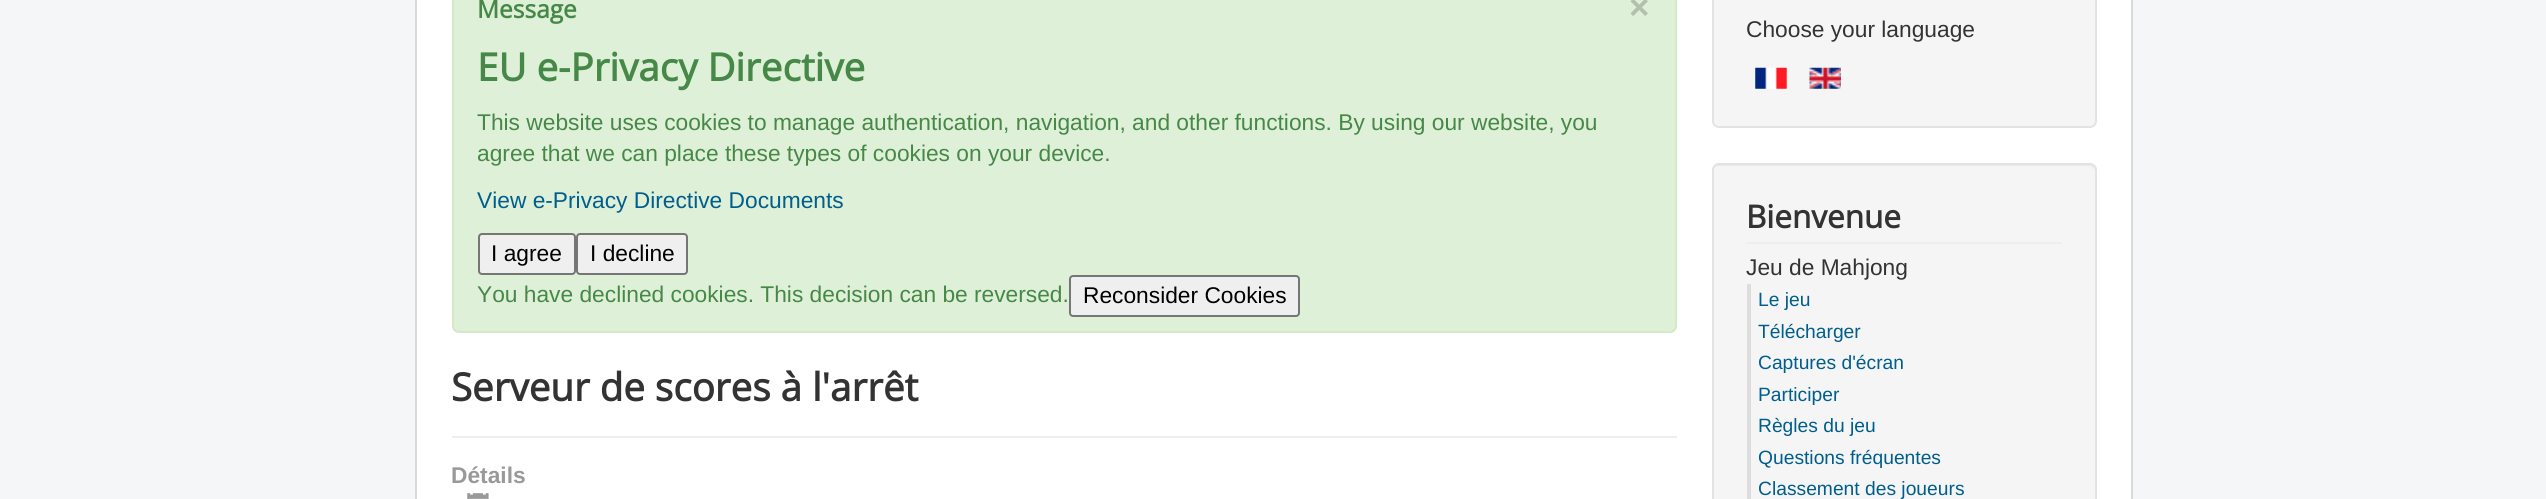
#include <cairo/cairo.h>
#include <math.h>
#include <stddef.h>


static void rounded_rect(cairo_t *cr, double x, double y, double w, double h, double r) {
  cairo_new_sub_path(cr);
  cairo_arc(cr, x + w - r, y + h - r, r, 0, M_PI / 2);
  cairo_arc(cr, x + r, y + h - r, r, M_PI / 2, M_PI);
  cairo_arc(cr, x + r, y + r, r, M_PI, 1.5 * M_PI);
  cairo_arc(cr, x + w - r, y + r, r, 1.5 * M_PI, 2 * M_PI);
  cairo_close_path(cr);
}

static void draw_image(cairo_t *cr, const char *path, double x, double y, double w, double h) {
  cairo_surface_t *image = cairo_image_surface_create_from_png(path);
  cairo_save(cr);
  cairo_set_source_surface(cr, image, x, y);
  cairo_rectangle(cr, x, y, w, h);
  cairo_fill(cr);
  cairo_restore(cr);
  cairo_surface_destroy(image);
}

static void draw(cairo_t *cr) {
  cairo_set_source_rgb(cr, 244 / 255.0, 246 / 255.0, 247 / 255.0);
  cairo_paint(cr);
  cairo_set_source_rgb(cr, 1, 1, 1);
  cairo_rectangle(cr, 416, -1, 1716, 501);
  cairo_fill_preserve(cr);
  cairo_set_source_rgb(cr, 217 / 255.0, 217 / 255.0, 217 / 255.0);
  cairo_stroke(cr);
  cairo_set_source_rgb(cr, 223 / 255.0, 240 / 255.0, 216 / 255.0);
  rounded_rect(cr, 453, -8, 1223, 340, 6);
  cairo_fill_preserve(cr);
  cairo_set_source_rgb(cr, 214 / 255.0, 233 / 255.0, 198 / 255.0);
  cairo_stroke(cr);
  cairo_set_source_rgb(cr, 239 / 255.0, 239 / 255.0, 239 / 255.0);
  rounded_rect(cr, 479, 234, 96, 40, 3);
  cairo_fill_preserve(cr);
  cairo_set_source_rgb(cr, 118 / 255.0, 118 / 255.0, 118 / 255.0);
  cairo_stroke(cr);
  cairo_set_source_rgb(cr, 239 / 255.0, 239 / 255.0, 239 / 255.0);
  rounded_rect(cr, 577, 234, 110, 40, 3);
  cairo_fill_preserve(cr);
  cairo_set_source_rgb(cr, 118 / 255.0, 118 / 255.0, 118 / 255.0);
  cairo_stroke(cr);
  cairo_set_source_rgb(cr, 239 / 255.0, 239 / 255.0, 239 / 255.0);
  rounded_rect(cr, 1070, 276, 229, 40, 3);
  cairo_fill_preserve(cr);
  cairo_set_source_rgb(cr, 118 / 255.0, 118 / 255.0, 118 / 255.0);
  cairo_stroke(cr);
  cairo_set_source_rgb(cr, 238 / 255.0, 238 / 255.0, 238 / 255.0);
  cairo_rectangle(cr, 452, 436, 1225, 2);
  cairo_fill(cr);
  draw_image(cr, "images/1.png", 467, 493, 22, 6);
  cairo_set_source_rgb(cr, 245 / 255.0, 245 / 255.0, 245 / 255.0);
  rounded_rect(cr, 1713, -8, 383, 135, 6);
  cairo_fill_preserve(cr);
  cairo_set_source_rgb(cr, 227 / 255.0, 227 / 255.0, 227 / 255.0);
  cairo_stroke(cr);
  draw_image(cr, "images/2.png", 1755, 67, 32, 22);
  draw_image(cr, "images/3.png", 1809, 67, 32, 22);
  cairo_set_source_rgb(cr, 245 / 255.0, 245 / 255.0, 245 / 255.0);
  rounded_rect(cr, 1712, 163, 385, 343, 7);
  cairo_fill(cr);
  cairo_set_source_rgb(cr, 233 / 255.0, 233 / 255.0, 233 / 255.0);
  cairo_new_path(cr);
  cairo_move_to(cr, 1718, 166);
  cairo_line_to(cr, 2090, 166);
  cairo_curve_to(cr, 2092, 166, 2095, 169, 2095, 172);
  cairo_line_to(cr, 2095, 170);
  cairo_curve_to(cr, 2095, 167, 2093, 165, 2090, 165);
  cairo_line_to(cr, 1718, 165);
  cairo_curve_to(cr, 1715, 165, 1713, 167, 1713, 170);
  cairo_line_to(cr, 1713, 172);
  cairo_curve_to(cr, 1713, 169, 1716, 166, 1718, 166);
  cairo_close_path(cr);
  cairo_fill(cr);
  rounded_rect(cr, 1713, 164, 383, 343, 6);
  cairo_set_source_rgb(cr, 227 / 255.0, 227 / 255.0, 227 / 255.0);
  cairo_stroke(cr);
  cairo_set_source_rgb(cr, 238 / 255.0, 238 / 255.0, 238 / 255.0);
  cairo_rectangle(cr, 1747, 242, 315, 2);
  cairo_fill(cr);
  cairo_set_source_rgb(cr, 221 / 255.0, 221 / 255.0, 221 / 255.0);
  cairo_rectangle(cr, 1747, 284, 4, 215);
  cairo_fill(cr);
  cairo_select_font_face(cr, "Open Sans", CAIRO_FONT_SLANT_NORMAL, CAIRO_FONT_WEIGHT_BOLD);
  cairo_set_font_size(cr, 24.5);
  cairo_set_source_rgb(cr, 70 / 255.0, 136 / 255.0, 71 / 255.0);
  cairo_move_to(cr, 477, 18);
  cairo_show_text(cr, "Message");
  cairo_select_font_face(cr, "Liberation Sans", CAIRO_FONT_SLANT_NORMAL, CAIRO_FONT_WEIGHT_BOLD);
  cairo_set_font_size(cr, 35);
  cairo_set_source_rgb(cr, 178 / 255.0, 192 / 255.0, 173 / 255.0);
  cairo_move_to(cr, 1629, 19);
  cairo_show_text(cr, "×");
  cairo_select_font_face(cr, "Open Sans", CAIRO_FONT_SLANT_NORMAL, CAIRO_FONT_WEIGHT_BOLD);
  cairo_set_font_size(cr, 38.5);
  cairo_set_source_rgb(cr, 70 / 255.0, 136 / 255.0, 71 / 255.0);
  cairo_move_to(cr, 477, 81);
  cairo_show_text(cr, "EU e-Privacy Directive");
  cairo_select_font_face(cr, "Liberation Sans", CAIRO_FONT_SLANT_NORMAL, CAIRO_FONT_WEIGHT_NORMAL);
  cairo_set_font_size(cr, 22.75);
  cairo_move_to(cr, 477, 130);
  cairo_show_text(cr, "This website uses cookies to manage authentication, navigation, and other functions. By using our website, you");
  cairo_move_to(cr, 477, 161);
  cairo_show_text(cr, "agree that we can place these types of cookies on your device.");
  cairo_set_source_rgb(cr, 0, 94 / 255.0, 141 / 255.0);
  cairo_move_to(cr, 477, 208);
  cairo_show_text(cr, "View e-Privacy Directive Documents");
  cairo_set_source_rgb(cr, 0, 0, 0);
  cairo_move_to(cr, 491, 261);
  cairo_show_text(cr, "I agree");
  cairo_move_to(cr, 590, 261);
  cairo_show_text(cr, "I decline");
  cairo_set_source_rgb(cr, 70 / 255.0, 136 / 255.0, 71 / 255.0);
  cairo_move_to(cr, 477, 302);
  cairo_show_text(cr, "You have declined cookies. This decision can be reversed.");
  cairo_set_source_rgb(cr, 0, 0, 0);
  cairo_move_to(cr, 1083, 303);
  cairo_show_text(cr, "Reconsider Cookies");
  cairo_select_font_face(cr, "Open Sans", CAIRO_FONT_SLANT_NORMAL, CAIRO_FONT_WEIGHT_BOLD);
  cairo_set_font_size(cr, 38.5);
  cairo_set_source_rgb(cr, 51 / 255.0, 51 / 255.0, 51 / 255.0);
  cairo_move_to(cr, 451, 401);
  cairo_show_text(cr, "Serveur de scores à l'arrêt");
  cairo_select_font_face(cr, "Liberation Sans", CAIRO_FONT_SLANT_NORMAL, CAIRO_FONT_WEIGHT_BOLD);
  cairo_set_font_size(cr, 22.75);
  cairo_set_source_rgb(cr, 153 / 255.0, 153 / 255.0, 153 / 255.0);
  cairo_move_to(cr, 451, 483);
  cairo_show_text(cr, "Détails");
  cairo_select_font_face(cr, "Liberation Sans", CAIRO_FONT_SLANT_NORMAL, CAIRO_FONT_WEIGHT_NORMAL);
  cairo_set_source_rgb(cr, 51 / 255.0, 51 / 255.0, 51 / 255.0);
  cairo_move_to(cr, 1746, 37);
  cairo_show_text(cr, "Choose your language");
  cairo_select_font_face(cr, "Open Sans", CAIRO_FONT_SLANT_NORMAL, CAIRO_FONT_WEIGHT_BOLD);
  cairo_set_font_size(cr, 31.5);
  cairo_move_to(cr, 1746, 228);
  cairo_show_text(cr, "Bienvenue");
  cairo_select_font_face(cr, "Liberation Sans", CAIRO_FONT_SLANT_NORMAL, CAIRO_FONT_WEIGHT_NORMAL);
  cairo_set_font_size(cr, 22.75);
  cairo_move_to(cr, 1746, 275);
  cairo_show_text(cr, "Jeu de Mahjong");
  cairo_set_font_size(cr, 19.25);
  cairo_set_source_rgb(cr, 0, 94 / 255.0, 141 / 255.0);
  cairo_move_to(cr, 1758, 306);
  cairo_show_text(cr, "Le jeu");
  cairo_move_to(cr, 1758, 338);
  cairo_show_text(cr, "Télécharger");
  cairo_move_to(cr, 1758, 369);
  cairo_show_text(cr, "Captures d'écran");
  cairo_move_to(cr, 1758, 401);
  cairo_show_text(cr, "Participer");
  cairo_move_to(cr, 1758, 432);
  cairo_show_text(cr, "Règles du jeu");
  cairo_move_to(cr, 1758, 464);
  cairo_show_text(cr, "Questions fréquentes");
  cairo_move_to(cr, 1758, 495);
  cairo_show_text(cr, "Classement des joueurs");
}

int main(void) {
  cairo_surface_t *surface = cairo_image_surface_create(CAIRO_FORMAT_RGB24, 2546, 499);
  cairo_t *cr = cairo_create(surface);
  cairo_font_options_t *options = cairo_font_options_create();
  cairo_font_options_set_hint_metrics(options, CAIRO_HINT_METRICS_OFF);
  cairo_font_options_set_hint_style(options, CAIRO_HINT_STYLE_NONE);
  cairo_set_font_options(cr, options);
  cairo_set_miter_limit(cr, 4);
  draw(cr);
  cairo_surface_write_to_png(surface, "out.png");
  cairo_font_options_destroy(options);
  cairo_destroy(cr);
  cairo_surface_destroy(surface);
  return 0;
}
